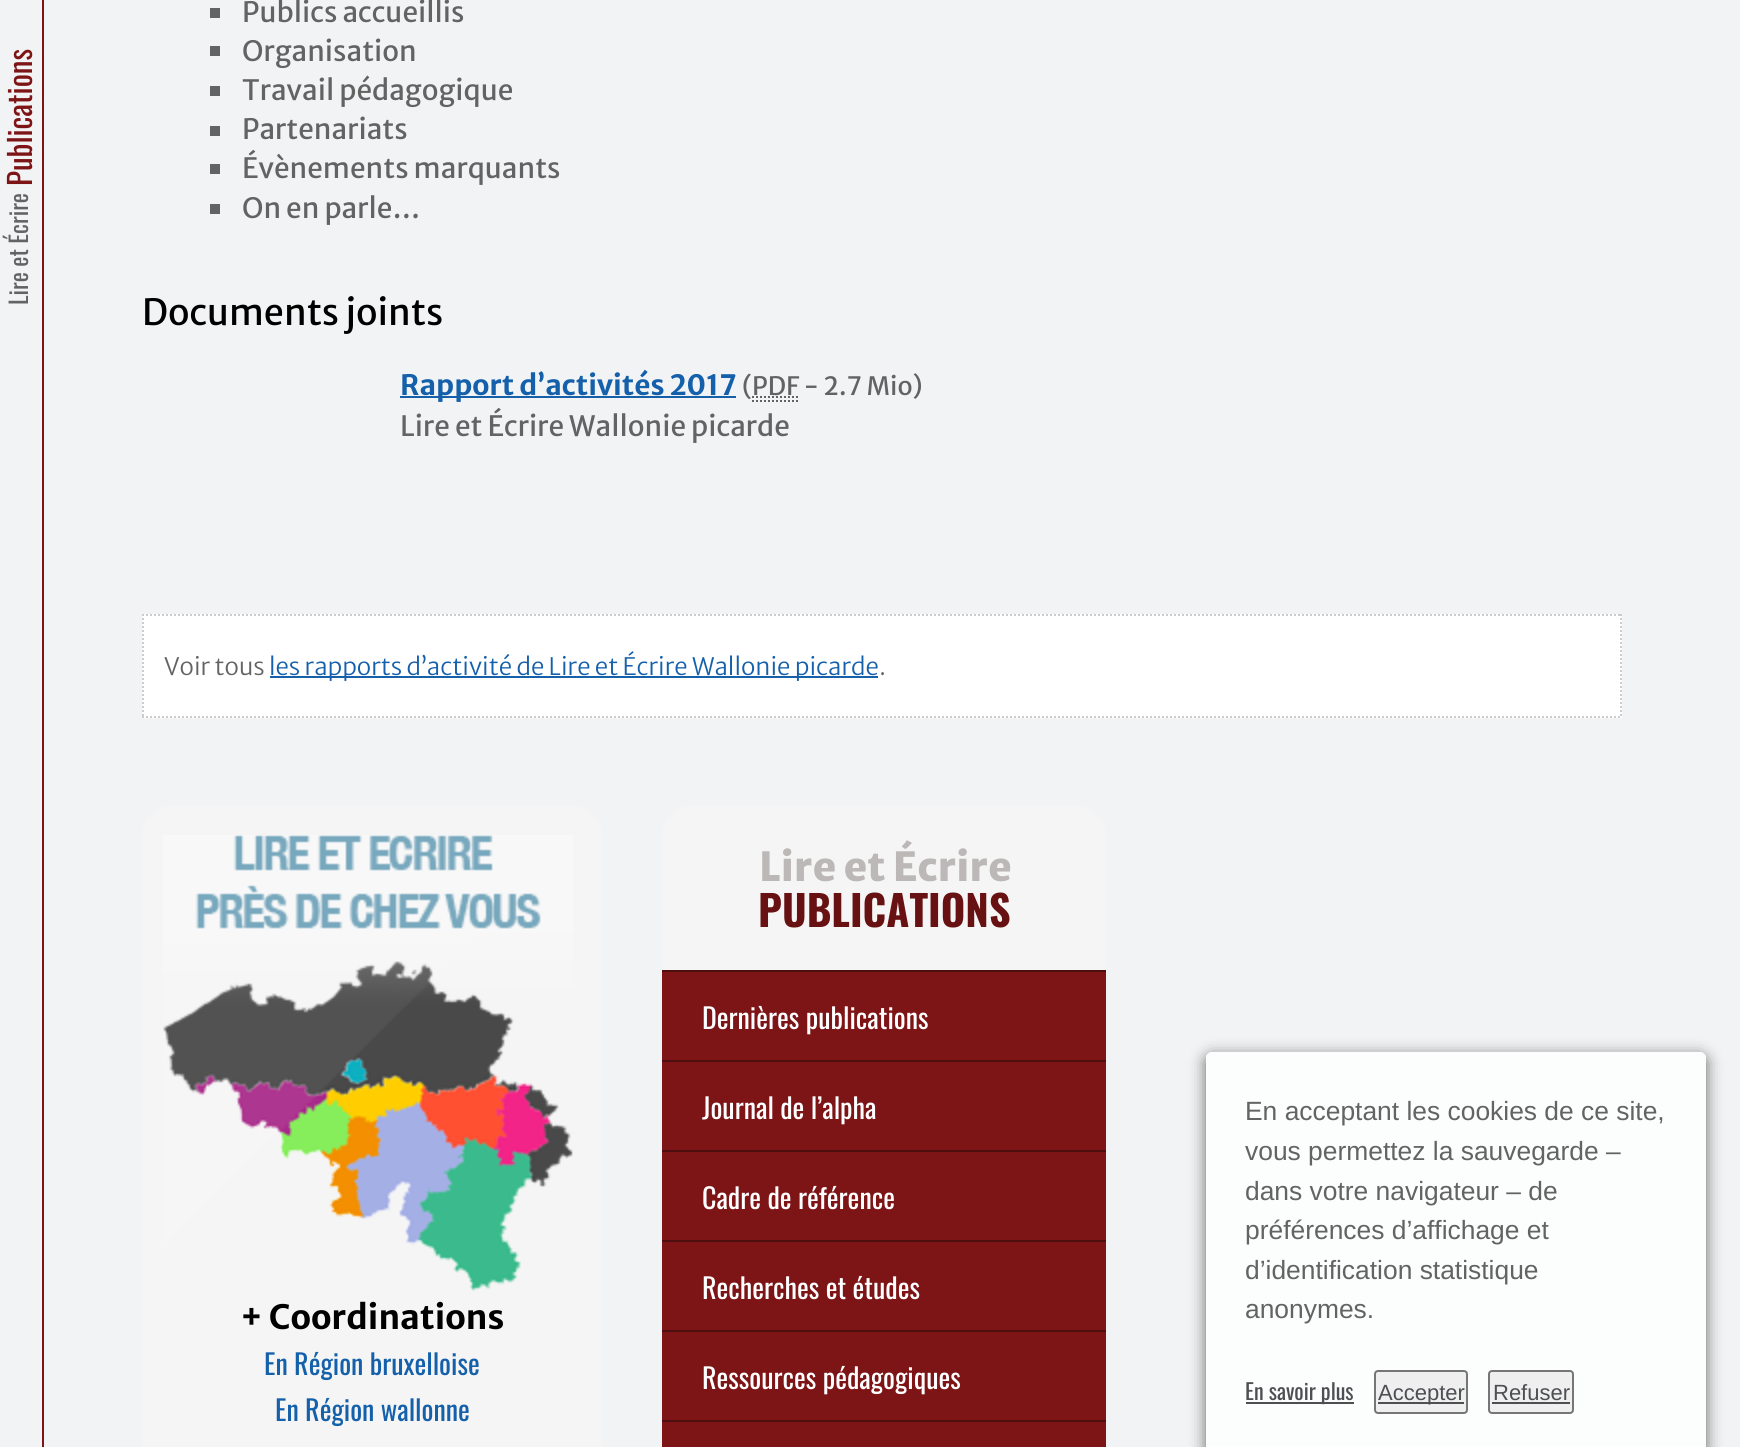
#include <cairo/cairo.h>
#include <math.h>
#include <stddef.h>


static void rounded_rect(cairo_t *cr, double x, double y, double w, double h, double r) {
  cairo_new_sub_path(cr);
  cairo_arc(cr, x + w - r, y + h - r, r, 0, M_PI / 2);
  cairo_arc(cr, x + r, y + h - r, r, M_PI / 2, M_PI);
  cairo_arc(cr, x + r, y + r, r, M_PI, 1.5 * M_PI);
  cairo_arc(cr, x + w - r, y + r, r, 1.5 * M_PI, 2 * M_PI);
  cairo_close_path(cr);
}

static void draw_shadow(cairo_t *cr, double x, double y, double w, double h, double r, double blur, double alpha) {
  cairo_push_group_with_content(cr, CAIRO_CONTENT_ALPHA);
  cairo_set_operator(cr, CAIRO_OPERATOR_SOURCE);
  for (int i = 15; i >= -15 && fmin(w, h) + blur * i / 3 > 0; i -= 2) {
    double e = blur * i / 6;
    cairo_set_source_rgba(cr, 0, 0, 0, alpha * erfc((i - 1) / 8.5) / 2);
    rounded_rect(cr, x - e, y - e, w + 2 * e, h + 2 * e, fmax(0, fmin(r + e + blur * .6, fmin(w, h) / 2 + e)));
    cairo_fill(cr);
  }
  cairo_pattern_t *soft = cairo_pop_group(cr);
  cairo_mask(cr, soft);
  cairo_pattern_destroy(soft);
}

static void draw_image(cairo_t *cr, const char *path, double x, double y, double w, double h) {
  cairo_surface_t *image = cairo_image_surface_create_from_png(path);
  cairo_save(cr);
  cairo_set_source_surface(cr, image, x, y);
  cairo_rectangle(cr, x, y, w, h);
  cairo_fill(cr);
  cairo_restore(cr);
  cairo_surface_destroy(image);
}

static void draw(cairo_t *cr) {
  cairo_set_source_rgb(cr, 242 / 255.0, 243 / 255.0, 244 / 255.0);
  cairo_paint(cr);
  cairo_set_source_rgb(cr, 125 / 255.0, 20 / 255.0, 22 / 255.0);
  cairo_rectangle(cr, 42, 0, 2, 1447);
  cairo_fill(cr);
  cairo_set_source_rgb(cr, 99 / 255.0, 99 / 255.0, 99 / 255.0);
  cairo_rectangle(cr, 210, 8, 10, 10);
  cairo_fill(cr);
  cairo_rectangle(cr, 210, 46, 10, 10);
  cairo_fill(cr);
  cairo_rectangle(cr, 210, 86, 10, 10);
  cairo_fill(cr);
  cairo_rectangle(cr, 210, 126, 10, 10);
  cairo_fill(cr);
  cairo_rectangle(cr, 210, 164, 10, 10);
  cairo_fill(cr);
  cairo_rectangle(cr, 210, 204, 10, 10);
  cairo_fill(cr);
  cairo_set_source_rgb(cr, 21 / 255.0, 96 / 255.0, 170 / 255.0);
  cairo_rectangle(cr, 400, 396, 336, 2);
  cairo_fill(cr);
  cairo_new_path(cr);
  cairo_move_to(cr, 752, 401);
  cairo_line_to(cr, 798, 401);
  cairo_move_to(cr, 752, 397);
  cairo_line_to(cr, 799, 397);
  cairo_set_source_rgb(cr, 99 / 255.0, 99 / 255.0, 99 / 255.0);
  cairo_set_dash(cr, (double[]){2, 2}, 2, 0);
  cairo_stroke(cr);
  cairo_set_source_rgb(cr, 1, 1, 1);
  cairo_rectangle(cr, 142, 614, 1480, 104);
  cairo_fill(cr);
  cairo_new_path(cr);
  cairo_move_to(cr, 142, 615);
  cairo_line_to(cr, 1622, 615);
  cairo_set_source_rgb(cr, 204 / 255.0, 204 / 255.0, 204 / 255.0);
  cairo_stroke(cr);
  cairo_new_path(cr);
  cairo_move_to(cr, 1621, 614);
  cairo_line_to(cr, 1621, 718);
  cairo_stroke(cr);
  cairo_new_path(cr);
  cairo_move_to(cr, 142, 717);
  cairo_line_to(cr, 1622, 717);
  cairo_stroke(cr);
  cairo_new_path(cr);
  cairo_move_to(cr, 143, 614);
  cairo_line_to(cr, 143, 718);
  cairo_stroke(cr);
  cairo_set_source_rgb(cr, 21 / 255.0, 96 / 255.0, 170 / 255.0);
  cairo_rectangle(cr, 270, 676, 608, 2);
  cairo_fill(cr);
  cairo_set_source_rgb(cr, 245 / 255.0, 245 / 255.0, 245 / 255.0);
  rounded_rect(cr, 142, 806, 460, 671, 30);
  cairo_fill(cr);
  draw_image(cr, "images/1.png", 163, 835, 410, 456);
  rounded_rect(cr, 662, 806, 444, 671, 30);
  cairo_fill(cr);
  cairo_set_source_rgb(cr, 125 / 255.0, 20 / 255.0, 22 / 255.0);
  cairo_rectangle(cr, 662, 972, 444, 88);
  cairo_fill(cr);
  cairo_set_source_rgb(cr, 79 / 255.0, 14 / 255.0, 14 / 255.0);
  cairo_rectangle(cr, 662, 970, 444, 2);
  cairo_fill(cr);
  cairo_set_source_rgb(cr, 125 / 255.0, 20 / 255.0, 22 / 255.0);
  cairo_rectangle(cr, 662, 1062, 444, 88);
  cairo_fill(cr);
  cairo_set_source_rgb(cr, 79 / 255.0, 14 / 255.0, 14 / 255.0);
  cairo_rectangle(cr, 662, 1060, 444, 2);
  cairo_fill(cr);
  cairo_set_source_rgb(cr, 125 / 255.0, 20 / 255.0, 22 / 255.0);
  cairo_rectangle(cr, 662, 1152, 444, 88);
  cairo_fill(cr);
  cairo_set_source_rgb(cr, 79 / 255.0, 14 / 255.0, 14 / 255.0);
  cairo_rectangle(cr, 662, 1150, 444, 2);
  cairo_fill(cr);
  cairo_set_source_rgb(cr, 125 / 255.0, 20 / 255.0, 22 / 255.0);
  cairo_rectangle(cr, 662, 1242, 444, 88);
  cairo_fill(cr);
  cairo_set_source_rgb(cr, 79 / 255.0, 14 / 255.0, 14 / 255.0);
  cairo_rectangle(cr, 662, 1240, 444, 2);
  cairo_fill(cr);
  cairo_set_source_rgb(cr, 125 / 255.0, 20 / 255.0, 22 / 255.0);
  cairo_rectangle(cr, 662, 1332, 444, 88);
  cairo_fill(cr);
  cairo_set_source_rgb(cr, 79 / 255.0, 14 / 255.0, 14 / 255.0);
  cairo_rectangle(cr, 662, 1330, 444, 2);
  cairo_fill(cr);
  cairo_set_source_rgb(cr, 125 / 255.0, 20 / 255.0, 22 / 255.0);
  cairo_rectangle(cr, 662, 1422, 444, 25);
  cairo_fill(cr);
  cairo_set_source_rgb(cr, 79 / 255.0, 14 / 255.0, 14 / 255.0);
  cairo_rectangle(cr, 662, 1420, 444, 2);
  cairo_fill(cr);
  cairo_save(cr);
  cairo_set_fill_rule(cr, CAIRO_FILL_RULE_EVEN_ODD);
  cairo_new_path(cr);
  cairo_move_to(cr, 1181, 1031);
  cairo_line_to(cr, 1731, 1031);
  cairo_line_to(cr, 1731, 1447);
  cairo_line_to(cr, 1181, 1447);
  cairo_close_path(cr);
  cairo_move_to(cr, 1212, 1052);
  cairo_line_to(cr, 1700, 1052);
  cairo_curve_to(cr, 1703.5, 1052, 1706, 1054.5, 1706, 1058);
  cairo_line_to(cr, 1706, 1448);
  cairo_curve_to(cr, 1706, 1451.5, 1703.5, 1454, 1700, 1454);
  cairo_line_to(cr, 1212, 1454);
  cairo_curve_to(cr, 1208.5, 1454, 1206, 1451.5, 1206, 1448);
  cairo_line_to(cr, 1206, 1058);
  cairo_curve_to(cr, 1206, 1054.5, 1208.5, 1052, 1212, 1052);
  cairo_close_path(cr);
  cairo_clip(cr);
  cairo_set_source_rgb(cr, 0, 0, 0);
  draw_shadow(cr, 1206, 1056, 500, 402, 6, 8, 0.6);
  cairo_restore(cr);
  cairo_set_source_rgba(cr, 1, 1, 1, 0.8);
  rounded_rect(cr, 1206, 1052, 500, 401, 6);
  cairo_fill(cr);
  cairo_set_source_rgb(cr, 77 / 255.0, 79 / 255.0, 83 / 255.0);
  cairo_rectangle(cr, 1246, 1402, 108, 2);
  cairo_fill(cr);
  cairo_set_source_rgb(cr, 239 / 255.0, 239 / 255.0, 239 / 255.0);
  rounded_rect(cr, 1375, 1371, 92, 42, 3);
  cairo_fill_preserve(cr);
  cairo_set_source_rgb(cr, 118 / 255.0, 118 / 255.0, 118 / 255.0);
  cairo_set_dash(cr, NULL, 0, 0);
  cairo_stroke(cr);
  cairo_set_source_rgb(cr, 77 / 255.0, 79 / 255.0, 83 / 255.0);
  cairo_rectangle(cr, 1378, 1402, 86, 2);
  cairo_fill(cr);
  cairo_set_source_rgb(cr, 239 / 255.0, 239 / 255.0, 239 / 255.0);
  rounded_rect(cr, 1489, 1371, 84, 42, 3);
  cairo_fill_preserve(cr);
  cairo_set_source_rgb(cr, 118 / 255.0, 118 / 255.0, 118 / 255.0);
  cairo_stroke(cr);
  cairo_set_source_rgb(cr, 77 / 255.0, 79 / 255.0, 83 / 255.0);
  cairo_rectangle(cr, 1492, 1402, 78, 2);
  cairo_fill(cr);
  cairo_select_font_face(cr, "Oswald", CAIRO_FONT_SLANT_NORMAL, CAIRO_FONT_WEIGHT_NORMAL);
  cairo_set_font_size(cr, 31);
  cairo_set_source_rgb(cr, 125 / 255.0, 20 / 255.0, 22 / 255.0);
  cairo_save(cr);
  cairo_translate(cr, 32, 186);
  cairo_rotate(cr, -90 * M_PI / 180);
  cairo_move_to(cr, 0, 0);
  cairo_show_text(cr, "Publications");
  cairo_restore(cr);
  cairo_set_font_size(cr, 24);
  cairo_set_source_rgb(cr, 99 / 255.0, 99 / 255.0, 99 / 255.0);
  cairo_save(cr);
  cairo_translate(cr, 28, 305);
  cairo_rotate(cr, -90 * M_PI / 180);
  cairo_move_to(cr, 0, 0);
  cairo_show_text(cr, "Lire et Écrire");
  cairo_restore(cr);
  cairo_select_font_face(cr, "Merriweather Sans", CAIRO_FONT_SLANT_NORMAL, CAIRO_FONT_WEIGHT_NORMAL);
  cairo_set_font_size(cr, 28);
  cairo_move_to(cr, 242, 22);
  cairo_show_text(cr, "Publics accueillis");
  cairo_move_to(cr, 242, 61);
  cairo_show_text(cr, "Organisation");
  cairo_move_to(cr, 242, 100);
  cairo_show_text(cr, "Travail pédagogique");
  cairo_move_to(cr, 242, 139);
  cairo_show_text(cr, "Partenariats");
  cairo_move_to(cr, 242, 178);
  cairo_show_text(cr, "Évènements marquants");
  cairo_move_to(cr, 242, 218);
  cairo_show_text(cr, "On en parle…");
  cairo_set_font_size(cr, 36);
  cairo_set_source_rgb(cr, 0, 0, 0);
  cairo_move_to(cr, 142, 325);
  cairo_show_text(cr, "Documents joints");
  cairo_select_font_face(cr, "Merriweather Sans", CAIRO_FONT_SLANT_NORMAL, CAIRO_FONT_WEIGHT_BOLD);
  cairo_set_font_size(cr, 28);
  cairo_set_source_rgb(cr, 21 / 255.0, 96 / 255.0, 170 / 255.0);
  cairo_move_to(cr, 400, 395);
  cairo_show_text(cr, "Rapport d’activités 2017");
  cairo_select_font_face(cr, "Merriweather Sans", CAIRO_FONT_SLANT_NORMAL, CAIRO_FONT_WEIGHT_NORMAL);
  cairo_set_font_size(cr, 25.25);
  cairo_set_source_rgb(cr, 99 / 255.0, 99 / 255.0, 99 / 255.0);
  cairo_move_to(cr, 742, 395);
  cairo_show_text(cr, "(PDF - 2.7 Mio)");
  cairo_set_font_size(cr, 28);
  cairo_move_to(cr, 400, 436);
  cairo_show_text(cr, "Lire et Écrire Wallonie picarde");
  cairo_select_font_face(cr, "Merriweather Sans Light", CAIRO_FONT_SLANT_NORMAL, CAIRO_FONT_WEIGHT_NORMAL);
  cairo_set_font_size(cr, 24);
  cairo_move_to(cr, 164, 675);
  cairo_show_text(cr, "Voir tous");
  cairo_set_source_rgb(cr, 21 / 255.0, 96 / 255.0, 170 / 255.0);
  cairo_move_to(cr, 269, 675);
  cairo_show_text(cr, "les rapports d’activité de Lire et Écrire Wallonie picarde");
  cairo_set_source_rgb(cr, 99 / 255.0, 99 / 255.0, 99 / 255.0);
  cairo_move_to(cr, 879, 675);
  cairo_show_text(cr, ".");
  cairo_select_font_face(cr, "Merriweather Sans", CAIRO_FONT_SLANT_NORMAL, CAIRO_FONT_WEIGHT_BOLD);
  cairo_set_font_size(cr, 33.5);
  cairo_set_source_rgb(cr, 0, 0, 0);
  cairo_move_to(cr, 240, 1329);
  cairo_show_text(cr, "+ Coordinations");
  cairo_select_font_face(cr, "Oswald", CAIRO_FONT_SLANT_NORMAL, CAIRO_FONT_WEIGHT_NORMAL);
  cairo_set_font_size(cr, 28);
  cairo_set_source_rgb(cr, 21 / 255.0, 96 / 255.0, 170 / 255.0);
  cairo_move_to(cr, 264, 1375);
  cairo_show_text(cr, "En Région bruxelloise");
  cairo_move_to(cr, 275, 1421);
  cairo_show_text(cr, "En Région wallonne");
  cairo_select_font_face(cr, "Merriweather Sans ExtraBold", CAIRO_FONT_SLANT_NORMAL, CAIRO_FONT_WEIGHT_NORMAL);
  cairo_set_font_size(cr, 40);
  cairo_set_source_rgb(cr, 188 / 255.0, 184 / 255.0, 184 / 255.0);
  cairo_move_to(cr, 759, 881);
  cairo_show_text(cr, "Lire et Écrire");
  cairo_select_font_face(cr, "Oswald", CAIRO_FONT_SLANT_NORMAL, CAIRO_FONT_WEIGHT_BOLD);
  cairo_set_font_size(cr, 42);
  cairo_set_source_rgb(cr, 103 / 255.0, 17 / 255.0, 18 / 255.0);
  cairo_move_to(cr, 758, 927);
  cairo_show_text(cr, "PUBLICATIONS");
  cairo_select_font_face(cr, "Oswald", CAIRO_FONT_SLANT_NORMAL, CAIRO_FONT_WEIGHT_NORMAL);
  cairo_set_font_size(cr, 28);
  cairo_set_source_rgb(cr, 1, 1, 1);
  cairo_move_to(cr, 702, 1029);
  cairo_show_text(cr, "Dernières publications");
  cairo_move_to(cr, 702, 1119);
  cairo_show_text(cr, "Journal de l’alpha");
  cairo_move_to(cr, 702, 1209);
  cairo_show_text(cr, "Cadre de référence");
  cairo_move_to(cr, 702, 1299);
  cairo_show_text(cr, "Recherches et études");
  cairo_move_to(cr, 702, 1389);
  cairo_show_text(cr, "Ressources pédagogiques");
  cairo_select_font_face(cr, "Liberation Sans", CAIRO_FONT_SLANT_NORMAL, CAIRO_FONT_WEIGHT_NORMAL);
  cairo_set_font_size(cr, 26.4);
  cairo_set_source_rgb(cr, 99 / 255.0, 99 / 255.0, 99 / 255.0);
  cairo_move_to(cr, 1245, 1120);
  cairo_show_text(cr, "En acceptant les cookies de ce site,");
  cairo_move_to(cr, 1245, 1160);
  cairo_show_text(cr, "vous permettez la sauvegarde –");
  cairo_move_to(cr, 1245, 1200);
  cairo_show_text(cr, "dans votre navigateur – de");
  cairo_move_to(cr, 1245, 1239);
  cairo_show_text(cr, "préférences d’affichage et");
  cairo_move_to(cr, 1245, 1279);
  cairo_show_text(cr, "d’identification statistique");
  cairo_move_to(cr, 1245, 1318);
  cairo_show_text(cr, "anonymes.");
  cairo_select_font_face(cr, "Oswald", CAIRO_FONT_SLANT_NORMAL, CAIRO_FONT_WEIGHT_NORMAL);
  cairo_set_font_size(cr, 22);
  cairo_set_source_rgb(cr, 77 / 255.0, 79 / 255.0, 83 / 255.0);
  cairo_move_to(cr, 1245, 1400);
  cairo_show_text(cr, "En savoir plus");
  cairo_select_font_face(cr, "Liberation Sans", CAIRO_FONT_SLANT_NORMAL, CAIRO_FONT_WEIGHT_NORMAL);
  cairo_move_to(cr, 1378, 1400);
  cairo_show_text(cr, "Accepter");
  cairo_move_to(cr, 1493, 1400);
  cairo_show_text(cr, "Refuser");
}

int main(void) {
  cairo_surface_t *surface = cairo_image_surface_create(CAIRO_FORMAT_RGB24, 1740, 1447);
  cairo_t *cr = cairo_create(surface);
  cairo_font_options_t *options = cairo_font_options_create();
  cairo_font_options_set_hint_metrics(options, CAIRO_HINT_METRICS_OFF);
  cairo_font_options_set_hint_style(options, CAIRO_HINT_STYLE_NONE);
  cairo_set_font_options(cr, options);
  cairo_set_miter_limit(cr, 4);
  draw(cr);
  cairo_surface_write_to_png(surface, "out.png");
  cairo_font_options_destroy(options);
  cairo_destroy(cr);
  cairo_surface_destroy(surface);
  return 0;
}
